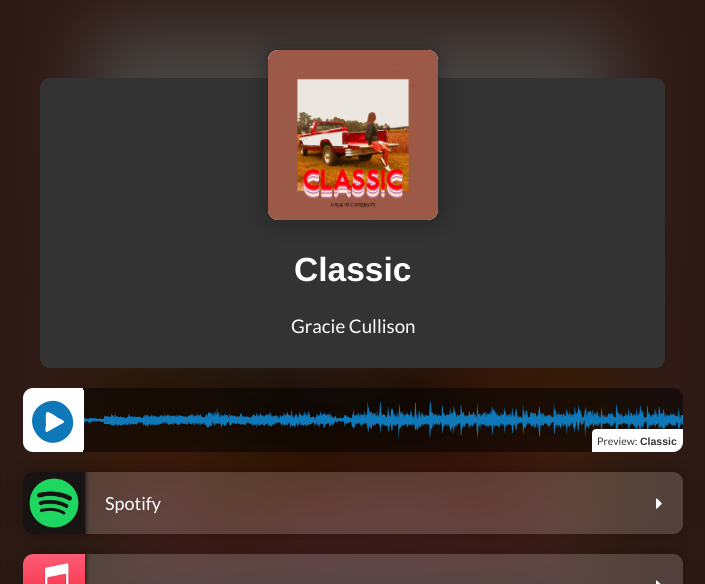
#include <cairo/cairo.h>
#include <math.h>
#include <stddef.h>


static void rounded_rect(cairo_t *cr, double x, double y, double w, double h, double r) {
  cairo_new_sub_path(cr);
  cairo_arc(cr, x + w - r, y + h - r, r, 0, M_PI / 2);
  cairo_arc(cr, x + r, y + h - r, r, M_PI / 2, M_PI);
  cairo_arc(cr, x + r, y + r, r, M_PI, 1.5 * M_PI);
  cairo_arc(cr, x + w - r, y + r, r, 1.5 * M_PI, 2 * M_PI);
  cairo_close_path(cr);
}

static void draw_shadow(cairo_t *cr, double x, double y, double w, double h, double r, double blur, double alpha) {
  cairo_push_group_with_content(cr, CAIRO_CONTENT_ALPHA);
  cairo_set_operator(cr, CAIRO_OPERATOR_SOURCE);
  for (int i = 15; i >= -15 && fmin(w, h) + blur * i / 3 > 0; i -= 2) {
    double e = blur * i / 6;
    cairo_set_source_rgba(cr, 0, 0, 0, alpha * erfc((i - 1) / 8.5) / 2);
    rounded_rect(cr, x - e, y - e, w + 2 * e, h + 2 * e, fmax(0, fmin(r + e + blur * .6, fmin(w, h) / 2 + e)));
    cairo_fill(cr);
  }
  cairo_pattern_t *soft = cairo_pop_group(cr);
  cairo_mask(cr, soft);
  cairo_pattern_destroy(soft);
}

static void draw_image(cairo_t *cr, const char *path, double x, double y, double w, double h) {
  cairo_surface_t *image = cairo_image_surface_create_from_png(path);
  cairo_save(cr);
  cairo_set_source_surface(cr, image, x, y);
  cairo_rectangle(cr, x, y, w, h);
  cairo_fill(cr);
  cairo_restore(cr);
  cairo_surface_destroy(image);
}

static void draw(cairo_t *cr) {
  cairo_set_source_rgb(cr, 0, 0, 0);
  cairo_paint(cr);
  draw_image(cr, "images/1.png", 0, 0, 705, 584);
  cairo_set_source_rgb(cr, 51 / 255.0, 51 / 255.0, 51 / 255.0);
  rounded_rect(cr, 40, 78, 625, 290, 10);
  cairo_fill(cr);
  cairo_set_source_rgb(cr, 0, 0, 0);
  draw_shadow(cr, 268, 50, 170, 170, 10, 12.5, 0.35);
  cairo_set_source_rgb(cr, 204 / 255.0, 204 / 255.0, 204 / 255.0);
  rounded_rect(cr, 268, 50, 170, 170, 10);
  cairo_fill(cr);
  draw_image(cr, "images/2.png", 268, 50, 170, 170);
  cairo_save(cr);
  cairo_rectangle(cr, 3, 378, 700, 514);
  cairo_clip(cr);
  cairo_set_fill_rule(cr, CAIRO_FILL_RULE_EVEN_ODD);
  cairo_new_path(cr);
  cairo_move_to(cr, 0, 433);
  cairo_line_to(cr, 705, 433);
  cairo_line_to(cr, 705, 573);
  cairo_line_to(cr, 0, 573);
  cairo_close_path(cr);
  cairo_move_to(cr, 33, 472);
  cairo_line_to(cr, 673, 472);
  cairo_curve_to(cr, 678.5, 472, 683, 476.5, 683, 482);
  cairo_line_to(cr, 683, 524);
  cairo_curve_to(cr, 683, 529.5, 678.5, 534, 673, 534);
  cairo_line_to(cr, 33, 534);
  cairo_curve_to(cr, 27.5, 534, 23, 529.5, 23, 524);
  cairo_line_to(cr, 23, 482);
  cairo_curve_to(cr, 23, 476.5, 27.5, 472, 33, 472);
  cairo_close_path(cr);
  cairo_clip(cr);
  cairo_set_source_rgb(cr, 0, 0, 0);
  draw_shadow(cr, 23, 472, 660, 62, 10, 12.5, 0.35);
  cairo_restore(cr);
  cairo_set_source_rgb(cr, 1, 1, 1);
  cairo_new_path(cr);
  cairo_move_to(cr, 33, 388);
  cairo_line_to(cr, 83, 388);
  cairo_line_to(cr, 83, 452);
  cairo_line_to(cr, 33, 452);
  cairo_curve_to(cr, 27.5, 452, 23, 447.5, 23, 442);
  cairo_line_to(cr, 23, 398);
  cairo_curve_to(cr, 23, 392.5, 27.5, 388, 33, 388);
  cairo_close_path(cr);
  cairo_fill(cr);
  cairo_set_source_rgb(cr, 15 / 255.0, 120 / 255.0, 184 / 255.0);
  cairo_new_path(cr);
  cairo_move_to(cr, 42, 404);
  cairo_curve_to(cr, 66, 390, 86, 426, 63, 440);
  cairo_curve_to(cr, 40, 453, 19, 418, 42, 404);
  cairo_close_path(cr);
  cairo_move_to(cr, 63, 423);
  cairo_curve_to(cr, 67, 421, 58, 418, 58, 418);
  cairo_curve_to(cr, 56, 416, 48, 411, 47, 412);
  cairo_curve_to(cr, 45, 413, 46, 423, 46, 425);
  cairo_curve_to(cr, 46, 426, 44, 432, 47, 432);
  cairo_close_path(cr);
  cairo_fill(cr);
  cairo_set_source_rgba(cr, 0, 0, 0, 0.5);
  cairo_new_path(cr);
  cairo_move_to(cr, 83, 388);
  cairo_line_to(cr, 673, 388);
  cairo_curve_to(cr, 678.5, 388, 683, 392.5, 683, 398);
  cairo_line_to(cr, 683, 442);
  cairo_curve_to(cr, 683, 447.5, 678.5, 452, 673, 452);
  cairo_line_to(cr, 83, 452);
  cairo_close_path(cr);
  cairo_fill(cr);
  cairo_set_source_rgb(cr, 1, 1, 1);
  cairo_rectangle(cr, 83, 390, 1, 60);
  cairo_fill(cr);
  draw_image(cr, "images/3.png", 84, 400, 599, 40);
  cairo_new_path(cr);
  cairo_move_to(cr, 596, 429);
  cairo_line_to(cr, 683, 429);
  cairo_line_to(cr, 683, 442);
  cairo_curve_to(cr, 683, 447.5, 678.5, 452, 673, 452);
  cairo_line_to(cr, 592, 452);
  cairo_line_to(cr, 592, 433);
  cairo_curve_to(cr, 592, 431, 594, 429, 596, 429);
  cairo_close_path(cr);
  cairo_fill(cr);
  cairo_set_source_rgba(cr, 1, 1, 1, 0.17);
  rounded_rect(cr, 23, 472, 660, 62, 10);
  cairo_fill(cr);
  cairo_save(cr);
  rounded_rect(cr, 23, 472, 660, 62, 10);
  cairo_clip(cr);
  cairo_set_source_rgb(cr, 0, 0, 0);
  draw_shadow(cr, 23, 472, 62, 62, 0, 2.5, 1);
  cairo_restore(cr);
  draw_image(cr, "images/4.png", 23, 472, 62, 62);
  draw_image(cr, "images/5.png", 656, 498, 6, 11);
  cairo_save(cr);
  cairo_rectangle(cr, 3, 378, 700, 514);
  cairo_clip(cr);
  cairo_set_fill_rule(cr, CAIRO_FILL_RULE_EVEN_ODD);
  cairo_new_path(cr);
  cairo_move_to(cr, 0, 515);
  cairo_line_to(cr, 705, 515);
  cairo_line_to(cr, 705, 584);
  cairo_line_to(cr, 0, 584);
  cairo_close_path(cr);
  cairo_move_to(cr, 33, 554);
  cairo_line_to(cr, 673, 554);
  cairo_curve_to(cr, 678.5, 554, 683, 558.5, 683, 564);
  cairo_line_to(cr, 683, 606);
  cairo_curve_to(cr, 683, 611.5, 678.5, 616, 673, 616);
  cairo_line_to(cr, 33, 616);
  cairo_curve_to(cr, 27.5, 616, 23, 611.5, 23, 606);
  cairo_line_to(cr, 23, 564);
  cairo_curve_to(cr, 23, 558.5, 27.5, 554, 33, 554);
  cairo_close_path(cr);
  cairo_clip(cr);
  cairo_set_source_rgb(cr, 0, 0, 0);
  draw_shadow(cr, 23, 554, 660, 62, 10, 12.5, 0.35);
  cairo_restore(cr);
  rounded_rect(cr, 23, 554, 660, 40, 10);
  cairo_fill(cr);
  cairo_save(cr);
  rounded_rect(cr, 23, 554, 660, 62, 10);
  cairo_clip(cr);
  cairo_set_source_rgb(cr, 0, 0, 0);
  draw_shadow(cr, 23, 554, 62, 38, 0, 2.5, 1);
  cairo_restore(cr);
  draw_image(cr, "images/6.png", 23, 554, 62, 30);
  draw_image(cr, "images/7.png", 656, 580, 5, 4);
  cairo_select_font_face(cr, "Liberation Sans", CAIRO_FONT_SLANT_NORMAL, CAIRO_FONT_WEIGHT_BOLD);
  cairo_set_font_size(cr, 33.5);
  cairo_set_source_rgb(cr, 1, 1, 1);
  cairo_move_to(cr, 294, 281);
  cairo_show_text(cr, "Classic");
  cairo_select_font_face(cr, "Lato", CAIRO_FONT_SLANT_NORMAL, CAIRO_FONT_WEIGHT_NORMAL);
  cairo_set_font_size(cr, 18.75);
  cairo_move_to(cr, 291, 333);
  cairo_show_text(cr, "Gracie Cullison");
  cairo_set_font_size(cr, 10.5);
  cairo_set_source_rgb(cr, 51 / 255.0, 51 / 255.0, 51 / 255.0);
  cairo_move_to(cr, 597, 445);
  cairo_show_text(cr, "Preview:");
  cairo_select_font_face(cr, "Liberation Sans", CAIRO_FONT_SLANT_NORMAL, CAIRO_FONT_WEIGHT_BOLD);
  cairo_move_to(cr, 640, 445);
  cairo_show_text(cr, "Classic");
  cairo_select_font_face(cr, "Lato", CAIRO_FONT_SLANT_NORMAL, CAIRO_FONT_WEIGHT_NORMAL);
  cairo_set_font_size(cr, 18);
  cairo_set_source_rgb(cr, 1, 1, 1);
  cairo_move_to(cr, 105, 510);
  cairo_show_text(cr, "Spotify");
}

int main(void) {
  cairo_surface_t *surface = cairo_image_surface_create(CAIRO_FORMAT_RGB24, 705, 584);
  cairo_t *cr = cairo_create(surface);
  cairo_font_options_t *options = cairo_font_options_create();
  cairo_font_options_set_hint_metrics(options, CAIRO_HINT_METRICS_OFF);
  cairo_font_options_set_hint_style(options, CAIRO_HINT_STYLE_NONE);
  cairo_set_font_options(cr, options);
  cairo_set_miter_limit(cr, 4);
  draw(cr);
  cairo_surface_write_to_png(surface, "out.png");
  cairo_font_options_destroy(options);
  cairo_destroy(cr);
  cairo_surface_destroy(surface);
  return 0;
}
